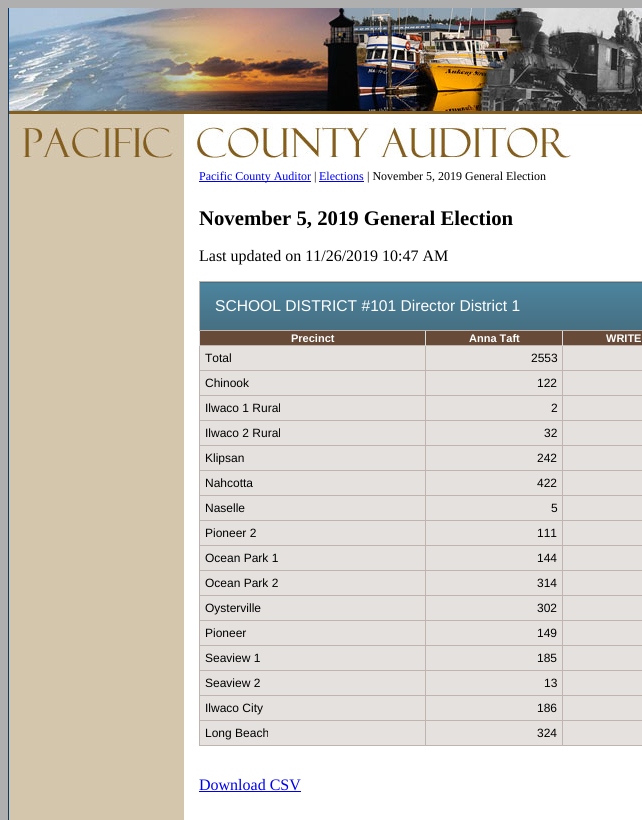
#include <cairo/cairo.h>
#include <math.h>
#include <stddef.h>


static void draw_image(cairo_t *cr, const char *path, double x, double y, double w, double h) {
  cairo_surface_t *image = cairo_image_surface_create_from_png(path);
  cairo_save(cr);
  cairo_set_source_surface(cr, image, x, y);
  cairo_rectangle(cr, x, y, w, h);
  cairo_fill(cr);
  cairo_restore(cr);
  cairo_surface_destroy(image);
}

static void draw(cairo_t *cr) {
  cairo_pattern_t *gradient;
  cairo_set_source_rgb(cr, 175 / 255.0, 175 / 255.0, 175 / 255.0);
  cairo_paint(cr);
  cairo_set_source_rgb(cr, 9 / 255.0, 58 / 255.0, 107 / 255.0);
  cairo_rectangle(cr, 8, 8, 1, 812);
  cairo_fill(cr);
  draw_image(cr, "images/1.png", 9, 8, 633, 103);
  cairo_set_source_rgb(cr, 132 / 255.0, 94 / 255.0, 30 / 255.0);
  cairo_rectangle(cr, 9, 111, 633, 3);
  cairo_fill(cr);
  cairo_set_source_rgb(cr, 1, 1, 1);
  cairo_rectangle(cr, 572, 114, 70, 44);
  cairo_fill(cr);
  draw_image(cr, "images/2.png", 9, 114, 563, 44);
  draw_image(cr, "images/3.png", 9, 158, 633, 662);
  cairo_set_source_rgb(cr, 0, 0, 238 / 255.0);
  cairo_rectangle(cr, 199, 181, 112, 1);
  cairo_fill(cr);
  cairo_rectangle(cr, 319, 181, 45, 1);
  cairo_fill(cr);
  cairo_set_source_rgb(cr, 70 / 255.0, 111 / 255.0, 130 / 255.0);
  cairo_rectangle(cr, 200, 282, 442, 1);
  cairo_fill(cr);
  gradient = cairo_pattern_create_linear(201, 283, 201, 330);
  cairo_pattern_add_color_stop_rgba(gradient, 0, 76 / 255.0, 132 / 255.0, 158 / 255.0, 1);
  cairo_pattern_add_color_stop_rgba(gradient, 1, 70 / 255.0, 111 / 255.0, 130 / 255.0, 1);
  cairo_set_source(cr, gradient);
  cairo_pattern_destroy(gradient);
  cairo_rectangle(cr, 200, 283, 442, 47);
  cairo_fill(cr);
  cairo_set_source_rgb(cr, 191 / 255.0, 180 / 255.0, 174 / 255.0);
  cairo_rectangle(cr, 199, 281, 443, 1);
  cairo_fill(cr);
  cairo_rectangle(cr, 562, 345, 80, 1);
  cairo_fill(cr);
  cairo_rectangle(cr, 562, 370, 80, 1);
  cairo_fill(cr);
  cairo_rectangle(cr, 562, 395, 80, 1);
  cairo_fill(cr);
  cairo_rectangle(cr, 562, 420, 80, 1);
  cairo_fill(cr);
  cairo_rectangle(cr, 562, 445, 80, 1);
  cairo_fill(cr);
  cairo_rectangle(cr, 562, 470, 80, 1);
  cairo_fill(cr);
  cairo_rectangle(cr, 562, 495, 80, 1);
  cairo_fill(cr);
  cairo_rectangle(cr, 562, 520, 80, 1);
  cairo_fill(cr);
  cairo_rectangle(cr, 562, 545, 80, 1);
  cairo_fill(cr);
  cairo_rectangle(cr, 562, 570, 80, 1);
  cairo_fill(cr);
  cairo_rectangle(cr, 562, 595, 80, 1);
  cairo_fill(cr);
  cairo_rectangle(cr, 562, 620, 80, 1);
  cairo_fill(cr);
  cairo_rectangle(cr, 562, 645, 80, 1);
  cairo_fill(cr);
  cairo_rectangle(cr, 562, 670, 80, 1);
  cairo_fill(cr);
  cairo_rectangle(cr, 562, 695, 80, 1);
  cairo_fill(cr);
  cairo_rectangle(cr, 562, 720, 80, 1);
  cairo_fill(cr);
  cairo_rectangle(cr, 562, 745, 80, 1);
  cairo_fill(cr);
  cairo_rectangle(cr, 562, 720, 1, 26);
  cairo_fill(cr);
  cairo_rectangle(cr, 425, 720, 138, 1);
  cairo_fill(cr);
  cairo_rectangle(cr, 562, 695, 1, 26);
  cairo_fill(cr);
  cairo_rectangle(cr, 425, 695, 138, 1);
  cairo_fill(cr);
  cairo_rectangle(cr, 562, 670, 1, 26);
  cairo_fill(cr);
  cairo_rectangle(cr, 425, 670, 138, 1);
  cairo_fill(cr);
  cairo_rectangle(cr, 562, 645, 1, 26);
  cairo_fill(cr);
  cairo_rectangle(cr, 425, 645, 138, 1);
  cairo_fill(cr);
  cairo_rectangle(cr, 562, 620, 1, 26);
  cairo_fill(cr);
  cairo_rectangle(cr, 425, 620, 138, 1);
  cairo_fill(cr);
  cairo_rectangle(cr, 562, 595, 1, 26);
  cairo_fill(cr);
  cairo_rectangle(cr, 425, 595, 138, 1);
  cairo_fill(cr);
  cairo_rectangle(cr, 562, 570, 1, 26);
  cairo_fill(cr);
  cairo_rectangle(cr, 425, 570, 138, 1);
  cairo_fill(cr);
  cairo_rectangle(cr, 562, 545, 1, 26);
  cairo_fill(cr);
  cairo_rectangle(cr, 425, 545, 138, 1);
  cairo_fill(cr);
  cairo_rectangle(cr, 562, 520, 1, 26);
  cairo_fill(cr);
  cairo_rectangle(cr, 425, 520, 138, 1);
  cairo_fill(cr);
  cairo_rectangle(cr, 562, 495, 1, 26);
  cairo_fill(cr);
  cairo_rectangle(cr, 425, 495, 138, 1);
  cairo_fill(cr);
  cairo_rectangle(cr, 562, 470, 1, 26);
  cairo_fill(cr);
  cairo_rectangle(cr, 425, 470, 138, 1);
  cairo_fill(cr);
  cairo_rectangle(cr, 562, 445, 1, 26);
  cairo_fill(cr);
  cairo_rectangle(cr, 425, 445, 138, 1);
  cairo_fill(cr);
  cairo_rectangle(cr, 562, 420, 1, 26);
  cairo_fill(cr);
  cairo_rectangle(cr, 425, 420, 138, 1);
  cairo_fill(cr);
  cairo_rectangle(cr, 562, 395, 1, 26);
  cairo_fill(cr);
  cairo_rectangle(cr, 425, 395, 138, 1);
  cairo_fill(cr);
  cairo_rectangle(cr, 562, 370, 1, 26);
  cairo_fill(cr);
  cairo_rectangle(cr, 425, 370, 138, 1);
  cairo_fill(cr);
  cairo_rectangle(cr, 562, 345, 1, 26);
  cairo_fill(cr);
  cairo_rectangle(cr, 425, 345, 138, 1);
  cairo_fill(cr);
  cairo_rectangle(cr, 425, 745, 138, 1);
  cairo_fill(cr);
  cairo_rectangle(cr, 425, 720, 1, 26);
  cairo_fill(cr);
  cairo_rectangle(cr, 199, 720, 227, 1);
  cairo_fill(cr);
  cairo_rectangle(cr, 425, 695, 1, 26);
  cairo_fill(cr);
  cairo_rectangle(cr, 199, 695, 227, 1);
  cairo_fill(cr);
  cairo_rectangle(cr, 425, 670, 1, 26);
  cairo_fill(cr);
  cairo_rectangle(cr, 199, 670, 227, 1);
  cairo_fill(cr);
  cairo_rectangle(cr, 425, 645, 1, 26);
  cairo_fill(cr);
  cairo_rectangle(cr, 199, 645, 227, 1);
  cairo_fill(cr);
  cairo_rectangle(cr, 425, 620, 1, 26);
  cairo_fill(cr);
  cairo_rectangle(cr, 199, 620, 227, 1);
  cairo_fill(cr);
  cairo_rectangle(cr, 425, 595, 1, 26);
  cairo_fill(cr);
  cairo_rectangle(cr, 199, 595, 227, 1);
  cairo_fill(cr);
  cairo_rectangle(cr, 425, 570, 1, 26);
  cairo_fill(cr);
  cairo_rectangle(cr, 199, 570, 227, 1);
  cairo_fill(cr);
  cairo_rectangle(cr, 425, 545, 1, 26);
  cairo_fill(cr);
  cairo_rectangle(cr, 199, 545, 227, 1);
  cairo_fill(cr);
  cairo_rectangle(cr, 425, 520, 1, 26);
  cairo_fill(cr);
  cairo_rectangle(cr, 199, 520, 227, 1);
  cairo_fill(cr);
  cairo_rectangle(cr, 425, 495, 1, 26);
  cairo_fill(cr);
  cairo_rectangle(cr, 199, 495, 227, 1);
  cairo_fill(cr);
  cairo_rectangle(cr, 425, 470, 1, 26);
  cairo_fill(cr);
  cairo_rectangle(cr, 199, 470, 227, 1);
  cairo_fill(cr);
  cairo_rectangle(cr, 425, 445, 1, 26);
  cairo_fill(cr);
  cairo_rectangle(cr, 199, 445, 227, 1);
  cairo_fill(cr);
  cairo_rectangle(cr, 425, 420, 1, 26);
  cairo_fill(cr);
  cairo_rectangle(cr, 199, 420, 227, 1);
  cairo_fill(cr);
  cairo_rectangle(cr, 425, 395, 1, 26);
  cairo_fill(cr);
  cairo_rectangle(cr, 199, 395, 227, 1);
  cairo_fill(cr);
  cairo_rectangle(cr, 425, 370, 1, 26);
  cairo_fill(cr);
  cairo_rectangle(cr, 199, 370, 227, 1);
  cairo_fill(cr);
  cairo_rectangle(cr, 425, 345, 1, 26);
  cairo_fill(cr);
  cairo_rectangle(cr, 199, 345, 227, 1);
  cairo_fill(cr);
  cairo_rectangle(cr, 199, 745, 227, 1);
  cairo_fill(cr);
  cairo_rectangle(cr, 199, 720, 1, 26);
  cairo_fill(cr);
  cairo_rectangle(cr, 199, 695, 1, 26);
  cairo_fill(cr);
  cairo_rectangle(cr, 199, 670, 1, 26);
  cairo_fill(cr);
  cairo_rectangle(cr, 199, 645, 1, 26);
  cairo_fill(cr);
  cairo_rectangle(cr, 199, 620, 1, 26);
  cairo_fill(cr);
  cairo_rectangle(cr, 199, 595, 1, 26);
  cairo_fill(cr);
  cairo_rectangle(cr, 199, 570, 1, 26);
  cairo_fill(cr);
  cairo_rectangle(cr, 199, 545, 1, 26);
  cairo_fill(cr);
  cairo_rectangle(cr, 199, 520, 1, 26);
  cairo_fill(cr);
  cairo_rectangle(cr, 199, 495, 1, 26);
  cairo_fill(cr);
  cairo_rectangle(cr, 199, 470, 1, 26);
  cairo_fill(cr);
  cairo_rectangle(cr, 199, 445, 1, 26);
  cairo_fill(cr);
  cairo_rectangle(cr, 199, 420, 1, 26);
  cairo_fill(cr);
  cairo_rectangle(cr, 199, 395, 1, 26);
  cairo_fill(cr);
  cairo_rectangle(cr, 199, 370, 1, 26);
  cairo_fill(cr);
  cairo_rectangle(cr, 199, 345, 1, 26);
  cairo_fill(cr);
  cairo_set_source_rgb(cr, 217 / 255.0, 222 / 255.0, 228 / 255.0);
  cairo_rectangle(cr, 199, 330, 1, 16);
  cairo_fill(cr);
  cairo_rectangle(cr, 425, 330, 1, 16);
  cairo_fill(cr);
  cairo_rectangle(cr, 562, 330, 1, 16);
  cairo_fill(cr);
  cairo_set_source_rgb(cr, 191 / 255.0, 180 / 255.0, 174 / 255.0);
  cairo_rectangle(cr, 199, 330, 443, 1);
  cairo_fill(cr);
  cairo_rectangle(cr, 199, 281, 1, 50);
  cairo_fill(cr);
  cairo_set_source_rgb(cr, 103 / 255.0, 74 / 255.0, 56 / 255.0);
  cairo_rectangle(cr, 200, 331, 225, 14);
  cairo_fill(cr);
  cairo_rectangle(cr, 426, 331, 136, 14);
  cairo_fill(cr);
  cairo_rectangle(cr, 563, 331, 79, 14);
  cairo_fill(cr);
  cairo_set_source_rgb(cr, 229 / 255.0, 225 / 255.0, 223 / 255.0);
  cairo_rectangle(cr, 200, 346, 225, 24);
  cairo_fill(cr);
  cairo_rectangle(cr, 426, 346, 136, 24);
  cairo_fill(cr);
  cairo_rectangle(cr, 563, 346, 79, 24);
  cairo_fill(cr);
  cairo_rectangle(cr, 200, 371, 225, 24);
  cairo_fill(cr);
  cairo_rectangle(cr, 426, 371, 136, 24);
  cairo_fill(cr);
  cairo_rectangle(cr, 563, 371, 79, 24);
  cairo_fill(cr);
  cairo_rectangle(cr, 200, 396, 225, 24);
  cairo_fill(cr);
  cairo_rectangle(cr, 426, 396, 136, 24);
  cairo_fill(cr);
  cairo_rectangle(cr, 563, 396, 79, 24);
  cairo_fill(cr);
  cairo_rectangle(cr, 200, 421, 225, 24);
  cairo_fill(cr);
  cairo_rectangle(cr, 426, 421, 136, 24);
  cairo_fill(cr);
  cairo_rectangle(cr, 563, 421, 79, 24);
  cairo_fill(cr);
  cairo_rectangle(cr, 200, 446, 225, 24);
  cairo_fill(cr);
  cairo_rectangle(cr, 426, 446, 136, 24);
  cairo_fill(cr);
  cairo_rectangle(cr, 563, 446, 79, 24);
  cairo_fill(cr);
  cairo_rectangle(cr, 200, 471, 225, 24);
  cairo_fill(cr);
  cairo_rectangle(cr, 426, 471, 136, 24);
  cairo_fill(cr);
  cairo_rectangle(cr, 563, 471, 79, 24);
  cairo_fill(cr);
  cairo_rectangle(cr, 200, 496, 225, 24);
  cairo_fill(cr);
  cairo_rectangle(cr, 426, 496, 136, 24);
  cairo_fill(cr);
  cairo_rectangle(cr, 563, 496, 79, 24);
  cairo_fill(cr);
  cairo_rectangle(cr, 200, 521, 225, 24);
  cairo_fill(cr);
  cairo_rectangle(cr, 426, 521, 136, 24);
  cairo_fill(cr);
  cairo_rectangle(cr, 563, 521, 79, 24);
  cairo_fill(cr);
  cairo_rectangle(cr, 200, 546, 225, 24);
  cairo_fill(cr);
  cairo_rectangle(cr, 426, 546, 136, 24);
  cairo_fill(cr);
  cairo_rectangle(cr, 563, 546, 79, 24);
  cairo_fill(cr);
  cairo_rectangle(cr, 200, 571, 225, 24);
  cairo_fill(cr);
  cairo_rectangle(cr, 426, 571, 136, 24);
  cairo_fill(cr);
  cairo_rectangle(cr, 563, 571, 79, 24);
  cairo_fill(cr);
  cairo_rectangle(cr, 200, 596, 225, 24);
  cairo_fill(cr);
  cairo_rectangle(cr, 426, 596, 136, 24);
  cairo_fill(cr);
  cairo_rectangle(cr, 563, 596, 79, 24);
  cairo_fill(cr);
  cairo_rectangle(cr, 200, 621, 225, 24);
  cairo_fill(cr);
  cairo_rectangle(cr, 426, 621, 136, 24);
  cairo_fill(cr);
  cairo_rectangle(cr, 563, 621, 79, 24);
  cairo_fill(cr);
  cairo_rectangle(cr, 200, 646, 225, 24);
  cairo_fill(cr);
  cairo_rectangle(cr, 426, 646, 136, 24);
  cairo_fill(cr);
  cairo_rectangle(cr, 563, 646, 79, 24);
  cairo_fill(cr);
  cairo_rectangle(cr, 200, 671, 225, 24);
  cairo_fill(cr);
  cairo_rectangle(cr, 426, 671, 136, 24);
  cairo_fill(cr);
  cairo_rectangle(cr, 563, 671, 79, 24);
  cairo_fill(cr);
  cairo_rectangle(cr, 200, 696, 225, 24);
  cairo_fill(cr);
  cairo_rectangle(cr, 426, 696, 136, 24);
  cairo_fill(cr);
  cairo_rectangle(cr, 563, 696, 79, 24);
  cairo_fill(cr);
  cairo_rectangle(cr, 200, 721, 225, 24);
  cairo_fill(cr);
  cairo_rectangle(cr, 426, 721, 136, 24);
  cairo_fill(cr);
  cairo_rectangle(cr, 563, 721, 79, 24);
  cairo_fill(cr);
  cairo_set_source_rgb(cr, 0, 0, 238 / 255.0);
  cairo_rectangle(cr, 199, 791, 102, 1);
  cairo_fill(cr);
  cairo_select_font_face(cr, "Liberation Serif", CAIRO_FONT_SLANT_NORMAL, CAIRO_FONT_WEIGHT_NORMAL);
  cairo_set_font_size(cr, 12);
  cairo_move_to(cr, 199, 180);
  cairo_show_text(cr, "Pacific County Auditor");
  cairo_set_source_rgb(cr, 0, 0, 0);
  cairo_move_to(cr, 314, 180);
  cairo_show_text(cr, "|");
  cairo_set_source_rgb(cr, 0, 0, 238 / 255.0);
  cairo_move_to(cr, 319, 180);
  cairo_show_text(cr, "Elections");
  cairo_set_source_rgb(cr, 0, 0, 0);
  cairo_move_to(cr, 367, 180);
  cairo_show_text(cr, "| November 5, 2019 General Election");
  cairo_select_font_face(cr, "Liberation Serif", CAIRO_FONT_SLANT_NORMAL, CAIRO_FONT_WEIGHT_BOLD);
  cairo_set_font_size(cr, 20.75);
  cairo_move_to(cr, 199, 225);
  cairo_show_text(cr, "November 5, 2019 General Election");
  cairo_select_font_face(cr, "Liberation Serif", CAIRO_FONT_SLANT_NORMAL, CAIRO_FONT_WEIGHT_NORMAL);
  cairo_set_font_size(cr, 16);
  cairo_move_to(cr, 199, 261);
  cairo_show_text(cr, "Last updated on 11/26/2019 10:47 AM");
  cairo_select_font_face(cr, "Liberation Sans", CAIRO_FONT_SLANT_NORMAL, CAIRO_FONT_WEIGHT_NORMAL);
  cairo_set_font_size(cr, 15.6);
  cairo_set_source_rgb(cr, 1, 1, 1);
  cairo_move_to(cr, 215, 311);
  cairo_show_text(cr, "SCHOOL DISTRICT #101 Director District 1");
  cairo_select_font_face(cr, "Liberation Sans", CAIRO_FONT_SLANT_NORMAL, CAIRO_FONT_WEIGHT_BOLD);
  cairo_set_font_size(cr, 11);
  cairo_move_to(cr, 291, 342);
  cairo_show_text(cr, "Precinct");
  cairo_move_to(cr, 469, 342);
  cairo_show_text(cr, "Anna Taft");
  cairo_move_to(cr, 606, 342);
  cairo_show_text(cr, "WRITE");
  cairo_select_font_face(cr, "Liberation Sans", CAIRO_FONT_SLANT_NORMAL, CAIRO_FONT_WEIGHT_NORMAL);
  cairo_set_font_size(cr, 12);
  cairo_set_source_rgb(cr, 0, 0, 0);
  cairo_move_to(cr, 205, 362);
  cairo_show_text(cr, "Total");
  cairo_move_to(cr, 531, 362);
  cairo_show_text(cr, "2553");
  cairo_move_to(cr, 205, 387);
  cairo_show_text(cr, "Chinook");
  cairo_move_to(cr, 537, 387);
  cairo_show_text(cr, "122");
  cairo_move_to(cr, 205, 412);
  cairo_show_text(cr, "Ilwaco 1 Rural");
  cairo_move_to(cr, 551, 412);
  cairo_show_text(cr, "2");
  cairo_move_to(cr, 205, 437);
  cairo_show_text(cr, "Ilwaco 2 Rural");
  cairo_move_to(cr, 544, 437);
  cairo_show_text(cr, "32");
  cairo_move_to(cr, 205, 462);
  cairo_show_text(cr, "Klipsan");
  cairo_move_to(cr, 537, 462);
  cairo_show_text(cr, "242");
  cairo_move_to(cr, 205, 487);
  cairo_show_text(cr, "Nahcotta");
  cairo_move_to(cr, 537, 487);
  cairo_show_text(cr, "422");
  cairo_move_to(cr, 205, 512);
  cairo_show_text(cr, "Naselle");
  cairo_move_to(cr, 551, 512);
  cairo_show_text(cr, "5");
  cairo_move_to(cr, 205, 537);
  cairo_show_text(cr, "Pioneer 2");
  cairo_move_to(cr, 537, 537);
  cairo_show_text(cr, "111");
  cairo_move_to(cr, 205, 562);
  cairo_show_text(cr, "Ocean Park 1");
  cairo_move_to(cr, 537, 562);
  cairo_show_text(cr, "144");
  cairo_move_to(cr, 205, 587);
  cairo_show_text(cr, "Ocean Park 2");
  cairo_move_to(cr, 537, 587);
  cairo_show_text(cr, "314");
  cairo_move_to(cr, 205, 612);
  cairo_show_text(cr, "Oysterville");
  cairo_move_to(cr, 537, 612);
  cairo_show_text(cr, "302");
  cairo_move_to(cr, 205, 637);
  cairo_show_text(cr, "Pioneer");
  cairo_move_to(cr, 537, 637);
  cairo_show_text(cr, "149");
  cairo_move_to(cr, 205, 662);
  cairo_show_text(cr, "Seaview 1");
  cairo_move_to(cr, 537, 662);
  cairo_show_text(cr, "185");
  cairo_move_to(cr, 205, 687);
  cairo_show_text(cr, "Seaview 2");
  cairo_move_to(cr, 544, 687);
  cairo_show_text(cr, "13");
  cairo_move_to(cr, 205, 712);
  cairo_show_text(cr, "Ilwaco City");
  cairo_move_to(cr, 537, 712);
  cairo_show_text(cr, "186");
  cairo_move_to(cr, 205, 737);
  cairo_show_text(cr, "Long Beach");
  cairo_move_to(cr, 537, 737);
  cairo_show_text(cr, "324");
  cairo_select_font_face(cr, "Liberation Serif", CAIRO_FONT_SLANT_NORMAL, CAIRO_FONT_WEIGHT_NORMAL);
  cairo_set_font_size(cr, 16);
  cairo_set_source_rgb(cr, 0, 0, 238 / 255.0);
  cairo_move_to(cr, 199, 790);
  cairo_show_text(cr, "Download CSV");
}

int main(void) {
  cairo_surface_t *surface = cairo_image_surface_create(CAIRO_FORMAT_RGB24, 642, 820);
  cairo_t *cr = cairo_create(surface);
  cairo_font_options_t *options = cairo_font_options_create();
  cairo_font_options_set_hint_metrics(options, CAIRO_HINT_METRICS_OFF);
  cairo_font_options_set_hint_style(options, CAIRO_HINT_STYLE_NONE);
  cairo_set_font_options(cr, options);
  cairo_set_miter_limit(cr, 4);
  draw(cr);
  cairo_surface_write_to_png(surface, "out.png");
  cairo_font_options_destroy(options);
  cairo_destroy(cr);
  cairo_surface_destroy(surface);
  return 0;
}
